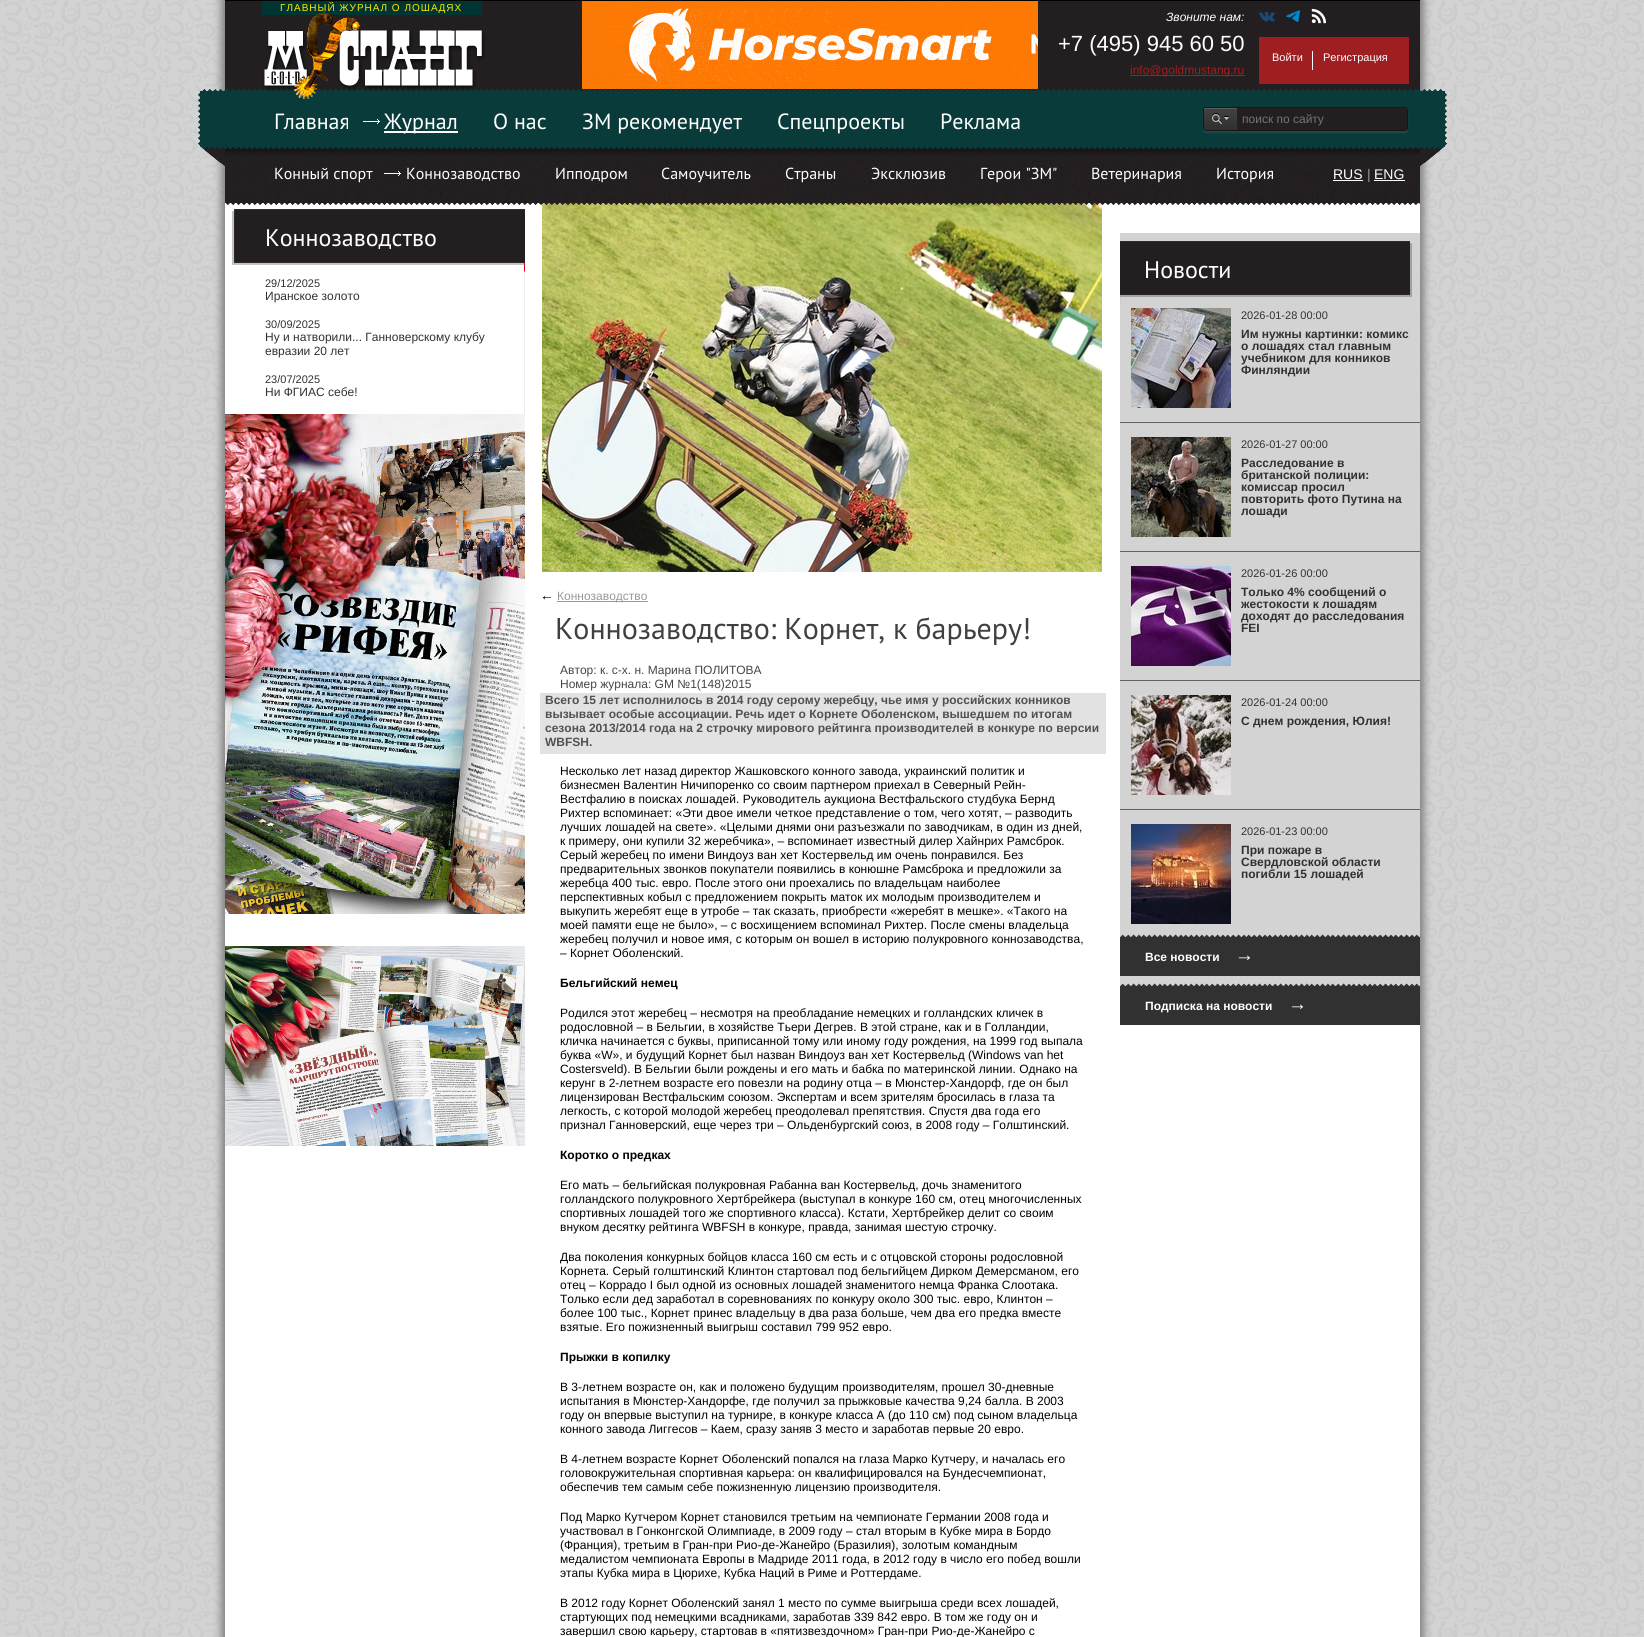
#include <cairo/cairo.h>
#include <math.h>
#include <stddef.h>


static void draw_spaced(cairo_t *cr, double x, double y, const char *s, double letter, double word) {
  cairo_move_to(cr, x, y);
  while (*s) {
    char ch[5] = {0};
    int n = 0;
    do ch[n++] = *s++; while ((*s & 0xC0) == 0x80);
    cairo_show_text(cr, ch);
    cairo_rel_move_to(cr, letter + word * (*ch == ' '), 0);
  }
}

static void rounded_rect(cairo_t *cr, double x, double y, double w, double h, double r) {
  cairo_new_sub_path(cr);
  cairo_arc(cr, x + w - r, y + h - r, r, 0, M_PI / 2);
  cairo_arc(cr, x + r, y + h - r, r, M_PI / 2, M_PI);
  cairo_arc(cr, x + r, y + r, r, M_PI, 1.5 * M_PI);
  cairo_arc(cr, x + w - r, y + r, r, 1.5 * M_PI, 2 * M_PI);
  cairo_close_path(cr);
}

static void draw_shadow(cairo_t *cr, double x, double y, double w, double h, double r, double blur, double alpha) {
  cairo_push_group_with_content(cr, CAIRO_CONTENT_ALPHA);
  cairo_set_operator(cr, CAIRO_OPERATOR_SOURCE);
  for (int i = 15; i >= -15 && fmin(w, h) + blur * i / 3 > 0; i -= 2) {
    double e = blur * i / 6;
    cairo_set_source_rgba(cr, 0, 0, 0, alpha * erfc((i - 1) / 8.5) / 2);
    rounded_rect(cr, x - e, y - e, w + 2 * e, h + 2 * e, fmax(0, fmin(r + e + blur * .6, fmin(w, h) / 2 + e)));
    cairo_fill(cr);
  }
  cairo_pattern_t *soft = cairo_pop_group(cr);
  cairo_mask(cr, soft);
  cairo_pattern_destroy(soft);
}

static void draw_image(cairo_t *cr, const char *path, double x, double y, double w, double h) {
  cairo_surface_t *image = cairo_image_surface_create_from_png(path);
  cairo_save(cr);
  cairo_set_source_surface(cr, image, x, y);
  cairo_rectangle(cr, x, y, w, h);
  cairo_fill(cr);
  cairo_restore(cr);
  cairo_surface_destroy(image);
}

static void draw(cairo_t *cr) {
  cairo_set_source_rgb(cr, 1, 1, 1);
  cairo_paint(cr);
  draw_image(cr, "images/1.png", 0, 0, 1644, 1637);
  cairo_set_source_rgb(cr, 129 / 255.0, 129 / 255.0, 129 / 255.0);
  draw_shadow(cr, 221, -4, 1203, 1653, 0, 4, 1);
  cairo_set_source_rgb(cr, 1, 1, 1);
  cairo_rectangle(cr, 225, 203, 1195, 1434);
  cairo_fill(cr);
  cairo_set_source_rgb(cr, 0, 0, 0);
  cairo_rectangle(cr, 225, 0, 1195, 1);
  cairo_fill(cr);
  cairo_set_source_rgb(cr, 35 / 255.0, 31 / 255.0, 32 / 255.0);
  cairo_rectangle(cr, 225, 1, 1195, 90);
  cairo_fill(cr);
  draw_image(cr, "images/3.png", 582, 1, 456, 88);
  draw_image(cr, "images/7.png", 225, 88, 1195, 61);
  draw_image(cr, "images/2.png", 262, 1, 223, 98);
  cairo_set_source_rgb(cr, 160 / 255.0, 29 / 255.0, 33 / 255.0);
  cairo_rectangle(cr, 1130, 75, 115, 1);
  cairo_fill(cr);
  draw_image(cr, "images/4.png", 1259, 12, 16, 10);
  draw_image(cr, "images/5.png", 1286, 10, 14, 12);
  draw_image(cr, "images/6.png", 1311, 8, 15, 16);
  cairo_set_source_rgb(cr, 159 / 255.0, 30 / 255.0, 34 / 255.0);
  cairo_rectangle(cr, 1259, 37, 150, 47);
  cairo_fill(cr);
  cairo_set_source_rgb(cr, 1, 1, 1);
  cairo_rectangle(cr, 1312, 51, 1, 19);
  cairo_fill(cr);
  draw_image(cr, "images/15.png", 542, 203, 560, 369);
  draw_image(cr, "images/11.png", 225, 147, 1195, 58);
  draw_image(cr, "images/23.png", 198, 89, 1249, 77);
  draw_image(cr, "images/8.png", 363, 119, 17, 5);
  cairo_rectangle(cr, 384, 131, 74, 2);
  cairo_fill(cr);
  draw_image(cr, "images/9.png", 384, 171, 17, 5);
  cairo_set_source_rgb(cr, 28 / 255.0, 74 / 255.0, 73 / 255.0);
  draw_shadow(cr, 1203, 109, 205, 24, 3, 0.5, 1);
  rounded_rect(cr, 1203.5, 107.5, 204, 23, 2.5);
  cairo_set_source_rgb(cr, 22 / 255.0, 22 / 255.0, 22 / 255.0);
  cairo_set_line_width(cr, 1);
  cairo_stroke(cr);
  draw_image(cr, "images/10.png", 1204, 108, 33, 22);
  cairo_set_source_rgb(cr, 35 / 255.0, 31 / 255.0, 32 / 255.0);
  cairo_rectangle(cr, 1237, 108, 170, 22);
  cairo_fill(cr);
  cairo_set_source_rgb(cr, 1, 1, 1);
  cairo_rectangle(cr, 1333, 180, 30, 1);
  cairo_fill(cr);
  cairo_rectangle(cr, 1374, 180, 31, 1);
  cairo_fill(cr);
  cairo_set_source_rgb(cr, 237 / 255.0, 237 / 255.0, 237 / 255.0);
  cairo_rectangle(cr, 524, 267, 1, 147);
  cairo_fill(cr);
  draw_image(cr, "images/12.png", 232, 209, 293, 63);
  draw_image(cr, "images/13.png", 225, 414, 300, 500);
  draw_image(cr, "images/14.png", 225, 946, 300, 200);
  cairo_set_source_rgb(cr, 153 / 255.0, 153 / 255.0, 153 / 255.0);
  cairo_rectangle(cr, 557, 601, 91, 1);
  cairo_fill(cr);
  cairo_set_source_rgb(cr, 226 / 255.0, 226 / 255.0, 226 / 255.0);
  cairo_rectangle(cr, 540, 693, 566, 61);
  cairo_fill(cr);
  cairo_set_source_rgb(cr, 211 / 255.0, 211 / 255.0, 211 / 255.0);
  cairo_rectangle(cr, 1120, 233, 300, 753);
  cairo_fill(cr);
  draw_image(cr, "images/16.png", 1120, 241, 292, 63);
  cairo_set_source_rgb(cr, 98 / 255.0, 98 / 255.0, 98 / 255.0);
  cairo_rectangle(cr, 1120, 422, 300, 1);
  cairo_fill(cr);
  draw_image(cr, "images/17.png", 1131, 308, 100, 100);
  cairo_rectangle(cr, 1120, 551, 300, 1);
  cairo_fill(cr);
  draw_image(cr, "images/18.png", 1131, 437, 100, 100);
  cairo_rectangle(cr, 1120, 680, 300, 1);
  cairo_fill(cr);
  draw_image(cr, "images/19.png", 1131, 566, 100, 100);
  cairo_rectangle(cr, 1120, 809, 300, 1);
  cairo_fill(cr);
  draw_image(cr, "images/20.png", 1131, 695, 100, 100);
  draw_image(cr, "images/21.png", 1131, 824, 100, 100);
  draw_image(cr, "images/22.png", 1120, 934, 300, 42);
  draw_image(cr, "images/22.png", 1120, 983, 300, 42);
  cairo_select_font_face(cr, "Liberation Sans", CAIRO_FONT_SLANT_NORMAL, CAIRO_FONT_WEIGHT_NORMAL);
  cairo_set_font_size(cr, 10);
  cairo_set_source_rgb(cr, 1, 233 / 255.0, 0);
  draw_spaced(cr, 280, 11, "ГЛАВНЫЙ ЖУРНАЛ О ЛОШАДЯХ", 1, 0);
  cairo_select_font_face(cr, "Liberation Sans", CAIRO_FONT_SLANT_ITALIC, CAIRO_FONT_WEIGHT_NORMAL);
  cairo_set_font_size(cr, 12);
  cairo_set_source_rgb(cr, 1, 1, 1);
  cairo_move_to(cr, 1166, 21);
  cairo_show_text(cr, "Звоните нам:");
  cairo_select_font_face(cr, "Liberation Sans", CAIRO_FONT_SLANT_NORMAL, CAIRO_FONT_WEIGHT_NORMAL);
  cairo_set_font_size(cr, 22);
  cairo_move_to(cr, 1058, 51);
  cairo_show_text(cr, "+7 (495) 945 60 50");
  cairo_set_font_size(cr, 12);
  cairo_set_source_rgb(cr, 160 / 255.0, 29 / 255.0, 33 / 255.0);
  cairo_move_to(cr, 1130, 74);
  cairo_show_text(cr, "info@goldmustang.ru");
  cairo_set_font_size(cr, 11);
  cairo_set_source_rgb(cr, 1, 1, 1);
  cairo_move_to(cr, 1272, 61);
  cairo_show_text(cr, "Войти");
  cairo_move_to(cr, 1323, 61);
  cairo_show_text(cr, "Регистрация");
  cairo_select_font_face(cr, "PT Sans", CAIRO_FONT_SLANT_NORMAL, CAIRO_FONT_WEIGHT_NORMAL);
  cairo_set_font_size(cr, 22);
  cairo_move_to(cr, 384, 129);
  cairo_show_text(cr, "Журнал");
  cairo_set_font_size(cr, 16);
  cairo_move_to(cr, 274, 179);
  cairo_show_text(cr, "Конный спорт");
  cairo_move_to(cr, 406, 179);
  cairo_show_text(cr, "Коннозаводство");
  cairo_move_to(cr, 555, 179);
  cairo_show_text(cr, "Ипподром");
  cairo_move_to(cr, 661, 179);
  cairo_show_text(cr, "Самоучитель");
  cairo_move_to(cr, 785, 179);
  cairo_show_text(cr, "Страны");
  cairo_move_to(cr, 871, 179);
  cairo_show_text(cr, "Эксклюзив");
  cairo_move_to(cr, 980, 179);
  cairo_show_text(cr, "Герои \"ЗМ\"");
  cairo_move_to(cr, 1091, 179);
  cairo_show_text(cr, "Ветеринария");
  cairo_move_to(cr, 1216, 179);
  cairo_show_text(cr, "История");
  cairo_set_font_size(cr, 22);
  cairo_move_to(cr, 274, 129);
  cairo_show_text(cr, "Главная");
  cairo_move_to(cr, 493, 129);
  cairo_show_text(cr, "О нас");
  cairo_move_to(cr, 582, 129);
  cairo_show_text(cr, "ЗМ рекомендует");
  cairo_move_to(cr, 777, 129);
  cairo_show_text(cr, "Спецпроекты");
  cairo_move_to(cr, 940, 129);
  cairo_show_text(cr, "Реклама");
  cairo_select_font_face(cr, "Liberation Sans", CAIRO_FONT_SLANT_NORMAL, CAIRO_FONT_WEIGHT_NORMAL);
  cairo_set_font_size(cr, 12);
  cairo_set_source_rgb(cr, 117 / 255.0, 117 / 255.0, 117 / 255.0);
  cairo_move_to(cr, 1242, 123);
  cairo_show_text(cr, "поиск по сайту");
  cairo_set_font_size(cr, 14);
  cairo_set_source_rgb(cr, 1, 1, 1);
  cairo_move_to(cr, 1333, 179);
  cairo_show_text(cr, "RUS");
  cairo_set_source_rgb(cr, 153 / 255.0, 153 / 255.0, 153 / 255.0);
  cairo_move_to(cr, 1367, 179);
  cairo_show_text(cr, "|");
  cairo_set_source_rgb(cr, 1, 1, 1);
  cairo_move_to(cr, 1374, 179);
  cairo_show_text(cr, "ENG");
  cairo_select_font_face(cr, "PT Sans", CAIRO_FONT_SLANT_NORMAL, CAIRO_FONT_WEIGHT_NORMAL);
  cairo_set_font_size(cr, 24);
  cairo_move_to(cr, 265, 246);
  cairo_show_text(cr, "Коннозаводство");
  cairo_select_font_face(cr, "Liberation Sans", CAIRO_FONT_SLANT_NORMAL, CAIRO_FONT_WEIGHT_NORMAL);
  cairo_set_font_size(cr, 11);
  cairo_set_source_rgb(cr, 49 / 255.0, 49 / 255.0, 49 / 255.0);
  cairo_move_to(cr, 265, 287);
  cairo_show_text(cr, "29/12/2025");
  cairo_set_font_size(cr, 12);
  cairo_move_to(cr, 265, 300);
  cairo_show_text(cr, "Иранское золото");
  cairo_set_font_size(cr, 11);
  cairo_move_to(cr, 265, 328);
  cairo_show_text(cr, "30/09/2025");
  cairo_set_font_size(cr, 12);
  cairo_move_to(cr, 265, 341);
  cairo_show_text(cr, "Ну и натворили... Ганноверскому клубу");
  cairo_move_to(cr, 265, 355);
  cairo_show_text(cr, "евразии 20 лет");
  cairo_set_font_size(cr, 11);
  cairo_move_to(cr, 265, 383);
  cairo_show_text(cr, "23/07/2025");
  cairo_set_font_size(cr, 12);
  cairo_move_to(cr, 265, 396);
  cairo_show_text(cr, "Ни ФГИАС себе!");
  cairo_set_font_size(cr, 14);
  cairo_set_source_rgb(cr, 0, 0, 0);
  cairo_move_to(cr, 540, 600);
  cairo_show_text(cr, "←");
  cairo_set_font_size(cr, 12);
  cairo_set_source_rgb(cr, 153 / 255.0, 153 / 255.0, 153 / 255.0);
  cairo_move_to(cr, 557, 600);
  cairo_show_text(cr, "Коннозаводство");
  cairo_select_font_face(cr, "PT Sans", CAIRO_FONT_SLANT_NORMAL, CAIRO_FONT_WEIGHT_NORMAL);
  cairo_set_font_size(cr, 30);
  cairo_set_source_rgb(cr, 64 / 255.0, 64 / 255.0, 65 / 255.0);
  cairo_move_to(cr, 555, 639);
  cairo_show_text(cr, "Коннозаводство: Корнет, к барьеру!");
  cairo_select_font_face(cr, "Liberation Sans", CAIRO_FONT_SLANT_NORMAL, CAIRO_FONT_WEIGHT_NORMAL);
  cairo_set_font_size(cr, 12);
  cairo_set_source_rgb(cr, 70 / 255.0, 70 / 255.0, 70 / 255.0);
  cairo_move_to(cr, 560, 674);
  cairo_show_text(cr, "Автор: к. с-х. н. Марина ПОЛИТОВА");
  cairo_move_to(cr, 560, 688);
  cairo_show_text(cr, "Номер журнала: GM №1(148)2015");
  cairo_select_font_face(cr, "Liberation Sans", CAIRO_FONT_SLANT_NORMAL, CAIRO_FONT_WEIGHT_BOLD);
  cairo_set_source_rgb(cr, 81 / 255.0, 81 / 255.0, 81 / 255.0);
  cairo_move_to(cr, 545, 704);
  cairo_show_text(cr, "Всего 15 лет исполнилось в 2014 году серому жеребцу, чье имя у российских конников");
  cairo_move_to(cr, 545, 718);
  cairo_show_text(cr, "вызывает особые ассоциации. Речь идет о Корнете Оболенском, вышедшем по итогам");
  cairo_move_to(cr, 545, 732);
  cairo_show_text(cr, "сезона 2013/2014 года на 2 строчку мирового рейтинга производителей в конкуре по версии");
  cairo_move_to(cr, 545, 746);
  cairo_show_text(cr, "WBFSH.");
  cairo_select_font_face(cr, "Liberation Sans", CAIRO_FONT_SLANT_NORMAL, CAIRO_FONT_WEIGHT_NORMAL);
  cairo_set_source_rgb(cr, 0, 0, 0);
  cairo_move_to(cr, 560, 775);
  cairo_show_text(cr, "Несколько лет назад директор Жашковского конного завода, украинский политик и");
  cairo_move_to(cr, 560, 789);
  cairo_show_text(cr, "бизнесмен Валентин Ничипоренко со своим партнером приехал в Северный Рейн-");
  cairo_move_to(cr, 560, 803);
  cairo_show_text(cr, "Вестфалию в поисках лошадей. Руководитель аукциона Вестфальского студбука Бернд");
  cairo_move_to(cr, 560, 817);
  cairo_show_text(cr, "Рихтер вспоминает: «Эти двое имели четкое представление о том, чего хотят, – разводить");
  cairo_move_to(cr, 560, 831);
  cairo_show_text(cr, "лучших лошадей на свете». «Целыми днями они разъезжали по заводчикам, в один из дней,");
  cairo_move_to(cr, 560, 845);
  cairo_show_text(cr, "к примеру, они купили 32 жеребчика», – вспоминает известный дилер Хайнрих Рамсброк.");
  cairo_move_to(cr, 560, 859);
  cairo_show_text(cr, "Серый жеребец по имени Виндоуз ван хет Костервельд им очень понравился. Без");
  cairo_move_to(cr, 560, 873);
  cairo_show_text(cr, "предварительных звонков покупатели появились в конюшне Рамсброка и предложили за");
  cairo_move_to(cr, 560, 887);
  cairo_show_text(cr, "жеребца 400 тыс. евро. После этого они проехались по владельцам наиболее");
  cairo_move_to(cr, 560, 901);
  cairo_show_text(cr, "перспективных кобыл с предложением покрыть маток их молодым производителем и");
  cairo_move_to(cr, 560, 915);
  cairo_show_text(cr, "выкупить жеребят еще в утробе – так сказать, приобрести «жеребят в мешке». «Такого на");
  cairo_move_to(cr, 560, 929);
  cairo_show_text(cr, "моей памяти еще не было», – с восхищением вспоминал Рихтер. После смены владельца");
  cairo_move_to(cr, 560, 943);
  cairo_show_text(cr, "жеребец получил и новое имя, с которым он вошел в историю полукровного коннозаводства,");
  cairo_move_to(cr, 560, 957);
  cairo_show_text(cr, "– Корнет Оболенский.");
  cairo_select_font_face(cr, "Liberation Sans", CAIRO_FONT_SLANT_NORMAL, CAIRO_FONT_WEIGHT_BOLD);
  cairo_move_to(cr, 560, 987);
  cairo_show_text(cr, "Бельгийский немец");
  cairo_select_font_face(cr, "Liberation Sans", CAIRO_FONT_SLANT_NORMAL, CAIRO_FONT_WEIGHT_NORMAL);
  cairo_move_to(cr, 560, 1017);
  cairo_show_text(cr, "Родился этот жеребец – несмотря на преобладание немецких и голландских кличек в");
  cairo_move_to(cr, 560, 1031);
  cairo_show_text(cr, "родословной – в Бельгии, в хозяйстве Тьери Дегрев. В этой стране, как и в Голландии,");
  cairo_move_to(cr, 560, 1045);
  cairo_show_text(cr, "кличка начинается с буквы, приписанной тому или иному году рождения, на 1999 год выпала");
  cairo_move_to(cr, 560, 1059);
  cairo_show_text(cr, "буква «W», и будущий Корнет был назван Виндоуз ван хет Костервельд (Windows van het");
  cairo_move_to(cr, 560, 1073);
  cairo_show_text(cr, "Costersveld). В Бельгии были рождены и его мать и бабка по материнской линии. Однако на");
  cairo_move_to(cr, 560, 1087);
  cairo_show_text(cr, "керунг в 2-летнем возрасте его повезли на родину отца – в Мюнстер-Хандорф, где он был");
  cairo_move_to(cr, 560, 1101);
  cairo_show_text(cr, "лицензирован Вестфальским союзом. Экспертам и всем зрителям бросилась в глаза та");
  cairo_move_to(cr, 560, 1115);
  cairo_show_text(cr, "легкость, с которой молодой жеребец преодолевал препятствия. Спустя два года его");
  cairo_move_to(cr, 560, 1129);
  cairo_show_text(cr, "признал Ганноверский, еще через три – Ольденбургский союз, в 2008 году – Голштинский.");
  cairo_select_font_face(cr, "Liberation Sans", CAIRO_FONT_SLANT_NORMAL, CAIRO_FONT_WEIGHT_BOLD);
  cairo_move_to(cr, 560, 1159);
  cairo_show_text(cr, "Коротко о предках");
  cairo_select_font_face(cr, "Liberation Sans", CAIRO_FONT_SLANT_NORMAL, CAIRO_FONT_WEIGHT_NORMAL);
  cairo_move_to(cr, 560, 1189);
  cairo_show_text(cr, "Его мать – бельгийская полукровная Рабанна ван Костервельд, дочь знаменитого");
  cairo_move_to(cr, 560, 1203);
  cairo_show_text(cr, "голландского полукровного Хертбрейкера (выступал в конкуре 160 см, отец многочисленных");
  cairo_move_to(cr, 560, 1217);
  cairo_show_text(cr, "спортивных лошадей того же спортивного класса). Кстати, Хертбрейкер делит со своим");
  cairo_move_to(cr, 560, 1231);
  cairo_show_text(cr, "внуком десятку рейтинга WBFSH в конкуре, правда, занимая шестую строчку.");
  cairo_move_to(cr, 560, 1261);
  cairo_show_text(cr, "Два поколения конкурных бойцов класса 160 см есть и с отцовской стороны родословной");
  cairo_move_to(cr, 560, 1275);
  cairo_show_text(cr, "Корнета. Серый голштинский Клинтон стартовал под бельгийцем Дирком Демерсманом, его");
  cairo_move_to(cr, 560, 1289);
  cairo_show_text(cr, "отец – Коррадо I был одной из основных лошадей знаменитого немца Франка Слоотака.");
  cairo_move_to(cr, 560, 1303);
  cairo_show_text(cr, "Только если дед заработал в соревнованиях по конкуру около 300 тыс. евро, Клинтон –");
  cairo_move_to(cr, 560, 1317);
  cairo_show_text(cr, "более 100 тыс., Корнет принес владельцу в два раза больше, чем два его предка вместе");
  cairo_move_to(cr, 560, 1331);
  cairo_show_text(cr, "взятые. Его пожизненный выигрыш составил 799 952 евро.");
  cairo_select_font_face(cr, "Liberation Sans", CAIRO_FONT_SLANT_NORMAL, CAIRO_FONT_WEIGHT_BOLD);
  cairo_move_to(cr, 560, 1361);
  cairo_show_text(cr, "Прыжки в копилку");
  cairo_select_font_face(cr, "Liberation Sans", CAIRO_FONT_SLANT_NORMAL, CAIRO_FONT_WEIGHT_NORMAL);
  cairo_move_to(cr, 560, 1391);
  cairo_show_text(cr, "В 3-летнем возрасте он, как и положено будущим производителям, прошел 30-дневные");
  cairo_move_to(cr, 560, 1405);
  cairo_show_text(cr, "испытания в Мюнстер-Хандорфе, где получил за прыжковые качества 9,24 балла. В 2003");
  cairo_move_to(cr, 560, 1419);
  cairo_show_text(cr, "году он впервые выступил на турнире, в конкуре класса А (до 110 см) под сыном владельца");
  cairo_move_to(cr, 560, 1433);
  cairo_show_text(cr, "конного завода Лиггесов – Каем, сразу заняв 3 место и заработав первые 20 евро.");
  cairo_move_to(cr, 560, 1463);
  cairo_show_text(cr, "В 4-летнем возрасте Корнет Оболенский попался на глаза Марко Кутчеру, и началась его");
  cairo_move_to(cr, 560, 1477);
  cairo_show_text(cr, "головокружительная спортивная карьера: он квалифицировался на Бундесчемпионат,");
  cairo_move_to(cr, 560, 1491);
  cairo_show_text(cr, "обеспечив тем самым себе пожизненную лицензию производителя.");
  cairo_move_to(cr, 560, 1521);
  cairo_show_text(cr, "Под Марко Кутчером Корнет становился третьим на чемпионате Германии 2008 года и");
  cairo_move_to(cr, 560, 1535);
  cairo_show_text(cr, "участвовал в Гонконгской Олимпиаде, в 2009 году – стал вторым в Кубке мира в Бордо");
  cairo_move_to(cr, 560, 1549);
  cairo_show_text(cr, "(Франция), третьим в Гран-при Рио-де-Жанейро (Бразилия), золотым командным");
  cairo_move_to(cr, 560, 1563);
  cairo_show_text(cr, "медалистом чемпионата Европы в Мадриде 2011 года, в 2012 году в число его побед вошли");
  cairo_move_to(cr, 560, 1577);
  cairo_show_text(cr, "этапы Кубка мира в Цюрихе, Кубка Наций в Риме и Роттердаме.");
  cairo_move_to(cr, 560, 1607);
  cairo_show_text(cr, "В 2012 году Корнет Оболенский занял 1 место по сумме выигрыша среди всех лошадей,");
  cairo_move_to(cr, 560, 1621);
  cairo_show_text(cr, "стартующих под немецкими всадниками, заработав 339 842 евро. В том же году он и");
  cairo_move_to(cr, 560, 1635);
  cairo_show_text(cr, "завершил свою карьеру, стартовав в «пятизвездочном» Гран-при Рио-де-Жанейро с");
  cairo_select_font_face(cr, "PT Sans", CAIRO_FONT_SLANT_NORMAL, CAIRO_FONT_WEIGHT_NORMAL);
  cairo_set_font_size(cr, 24);
  cairo_set_source_rgb(cr, 1, 1, 1);
  cairo_move_to(cr, 1144, 278);
  cairo_show_text(cr, "Новости");
  cairo_select_font_face(cr, "Liberation Sans", CAIRO_FONT_SLANT_NORMAL, CAIRO_FONT_WEIGHT_NORMAL);
  cairo_set_font_size(cr, 11);
  cairo_set_source_rgb(cr, 49 / 255.0, 49 / 255.0, 49 / 255.0);
  cairo_move_to(cr, 1241, 319);
  cairo_show_text(cr, "2026-01-28 00:00");
  cairo_select_font_face(cr, "Liberation Sans", CAIRO_FONT_SLANT_NORMAL, CAIRO_FONT_WEIGHT_BOLD);
  cairo_set_font_size(cr, 12);
  cairo_move_to(cr, 1241, 338);
  cairo_show_text(cr, "Им нужны картинки: комикс");
  cairo_move_to(cr, 1241, 350);
  cairo_show_text(cr, "о лошадях стал главным");
  cairo_move_to(cr, 1241, 362);
  cairo_show_text(cr, "учебником для конников");
  cairo_move_to(cr, 1241, 374);
  cairo_show_text(cr, "Финляндии");
  cairo_select_font_face(cr, "Liberation Sans", CAIRO_FONT_SLANT_NORMAL, CAIRO_FONT_WEIGHT_NORMAL);
  cairo_set_font_size(cr, 11);
  cairo_move_to(cr, 1241, 448);
  cairo_show_text(cr, "2026-01-27 00:00");
  cairo_select_font_face(cr, "Liberation Sans", CAIRO_FONT_SLANT_NORMAL, CAIRO_FONT_WEIGHT_BOLD);
  cairo_set_font_size(cr, 12);
  cairo_move_to(cr, 1241, 467);
  cairo_show_text(cr, "Расследование в");
  cairo_move_to(cr, 1241, 479);
  cairo_show_text(cr, "британской полиции:");
  cairo_move_to(cr, 1241, 491);
  cairo_show_text(cr, "комиссар просил");
  cairo_move_to(cr, 1241, 503);
  cairo_show_text(cr, "повторить фото Путина на");
  cairo_move_to(cr, 1241, 515);
  cairo_show_text(cr, "лошади");
  cairo_select_font_face(cr, "Liberation Sans", CAIRO_FONT_SLANT_NORMAL, CAIRO_FONT_WEIGHT_NORMAL);
  cairo_set_font_size(cr, 11);
  cairo_move_to(cr, 1241, 577);
  cairo_show_text(cr, "2026-01-26 00:00");
  cairo_select_font_face(cr, "Liberation Sans", CAIRO_FONT_SLANT_NORMAL, CAIRO_FONT_WEIGHT_BOLD);
  cairo_set_font_size(cr, 12);
  cairo_move_to(cr, 1241, 596);
  cairo_show_text(cr, "Только 4% сообщений о");
  cairo_move_to(cr, 1241, 608);
  cairo_show_text(cr, "жестокости к лошадям");
  cairo_move_to(cr, 1241, 620);
  cairo_show_text(cr, "доходят до расследования");
  cairo_move_to(cr, 1241, 632);
  cairo_show_text(cr, "FEI");
  cairo_select_font_face(cr, "Liberation Sans", CAIRO_FONT_SLANT_NORMAL, CAIRO_FONT_WEIGHT_NORMAL);
  cairo_set_font_size(cr, 11);
  cairo_move_to(cr, 1241, 706);
  cairo_show_text(cr, "2026-01-24 00:00");
  cairo_select_font_face(cr, "Liberation Sans", CAIRO_FONT_SLANT_NORMAL, CAIRO_FONT_WEIGHT_BOLD);
  cairo_set_font_size(cr, 12);
  cairo_move_to(cr, 1241, 725);
  cairo_show_text(cr, "С днем рождения, Юлия!");
  cairo_select_font_face(cr, "Liberation Sans", CAIRO_FONT_SLANT_NORMAL, CAIRO_FONT_WEIGHT_NORMAL);
  cairo_set_font_size(cr, 11);
  cairo_move_to(cr, 1241, 835);
  cairo_show_text(cr, "2026-01-23 00:00");
  cairo_select_font_face(cr, "Liberation Sans", CAIRO_FONT_SLANT_NORMAL, CAIRO_FONT_WEIGHT_BOLD);
  cairo_set_font_size(cr, 12);
  cairo_move_to(cr, 1241, 854);
  cairo_show_text(cr, "При пожаре в");
  cairo_move_to(cr, 1241, 866);
  cairo_show_text(cr, "Свердловской области");
  cairo_move_to(cr, 1241, 878);
  cairo_show_text(cr, "погибли 15 лошадей");
  cairo_set_source_rgb(cr, 1, 1, 1);
  cairo_move_to(cr, 1145, 961);
  cairo_show_text(cr, "Все новости");
  cairo_set_font_size(cr, 19);
  cairo_move_to(cr, 1235, 961);
  cairo_show_text(cr, "→");
  cairo_set_font_size(cr, 12);
  cairo_move_to(cr, 1145, 1010);
  cairo_show_text(cr, "Подписка на новости");
  cairo_set_font_size(cr, 19);
  cairo_move_to(cr, 1288, 1010);
  cairo_show_text(cr, "→");
}

int main(void) {
  cairo_surface_t *surface = cairo_image_surface_create(CAIRO_FORMAT_RGB24, 1644, 1637);
  cairo_t *cr = cairo_create(surface);
  cairo_font_options_t *options = cairo_font_options_create();
  cairo_font_options_set_hint_metrics(options, CAIRO_HINT_METRICS_OFF);
  cairo_font_options_set_hint_style(options, CAIRO_HINT_STYLE_NONE);
  cairo_set_font_options(cr, options);
  cairo_set_miter_limit(cr, 4);
  draw(cr);
  cairo_surface_write_to_png(surface, "out.png");
  cairo_font_options_destroy(options);
  cairo_destroy(cr);
  cairo_surface_destroy(surface);
  return 0;
}
